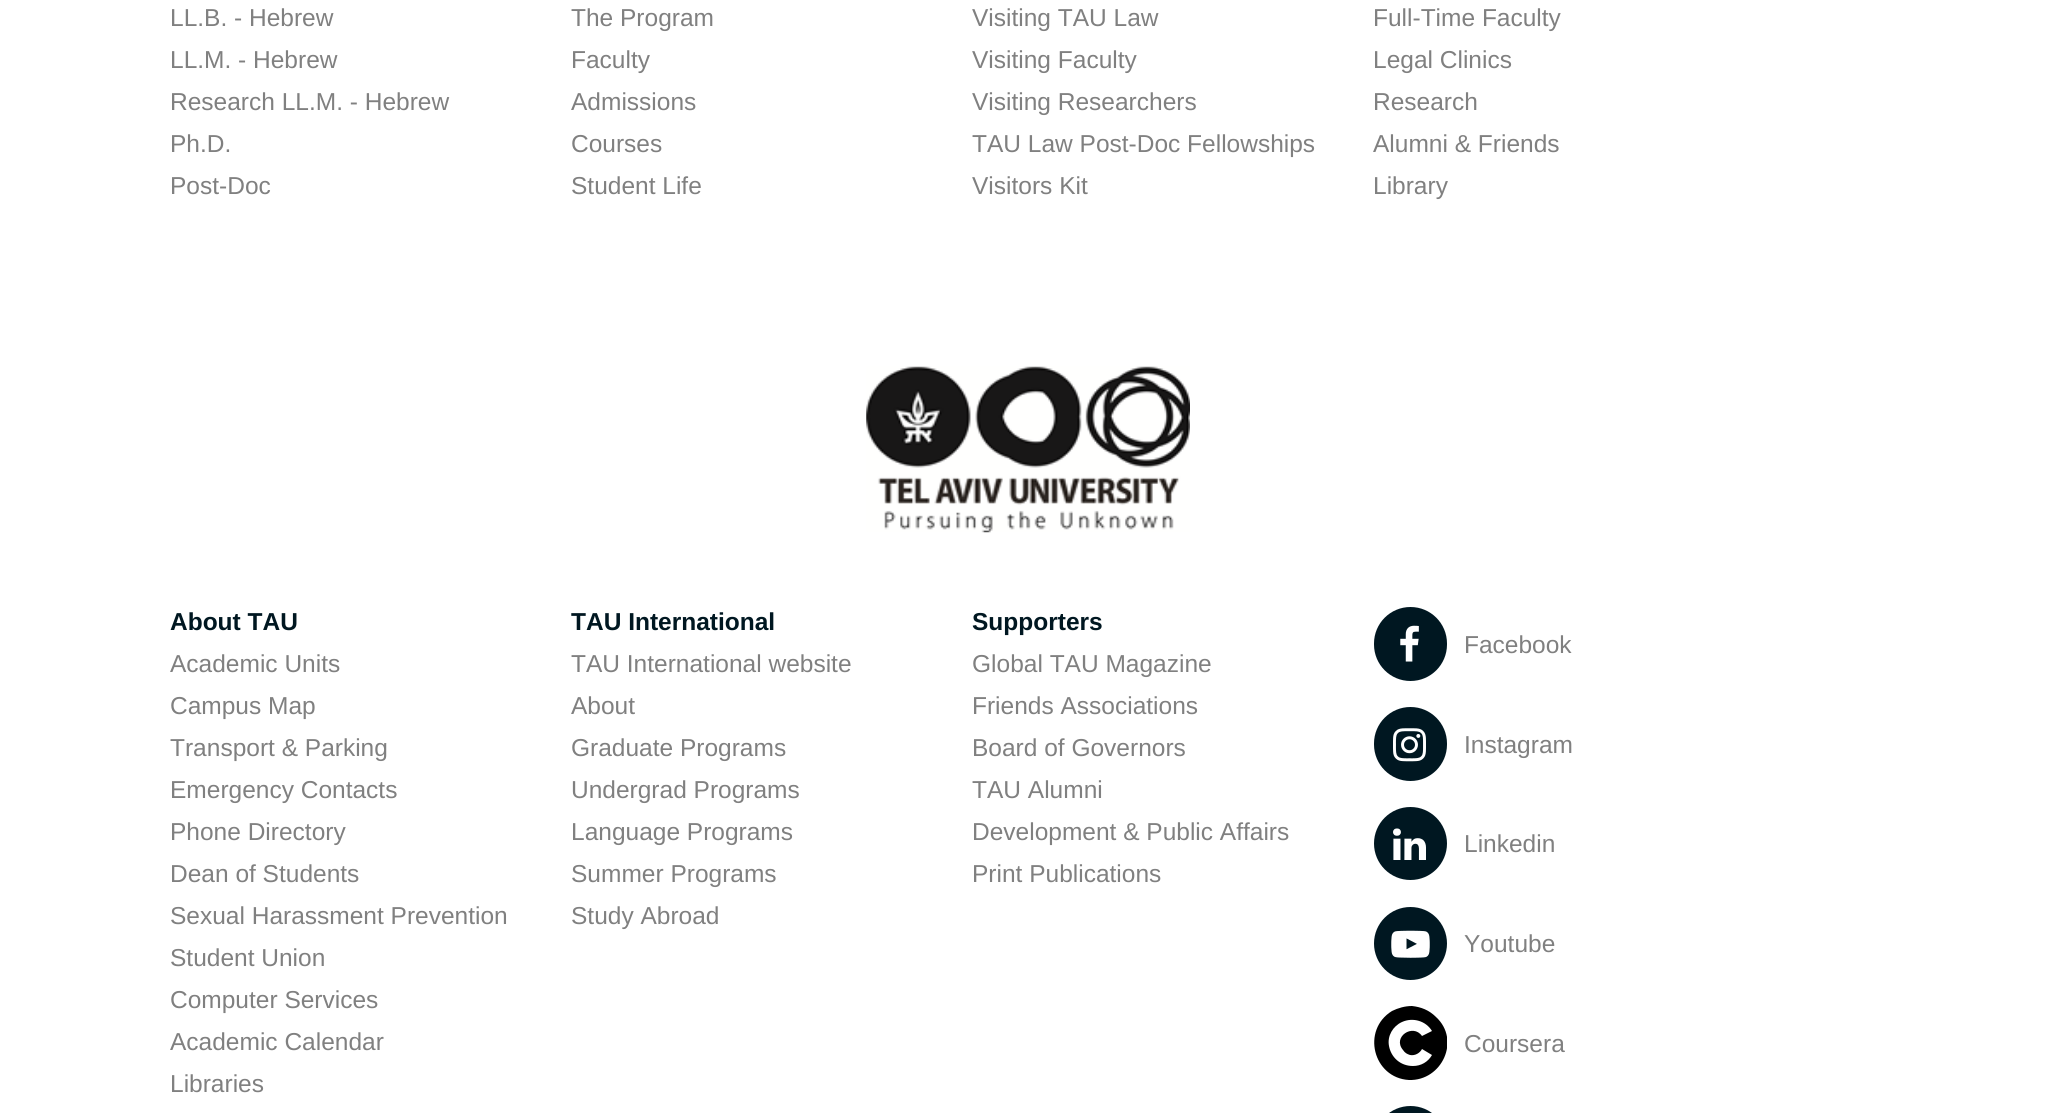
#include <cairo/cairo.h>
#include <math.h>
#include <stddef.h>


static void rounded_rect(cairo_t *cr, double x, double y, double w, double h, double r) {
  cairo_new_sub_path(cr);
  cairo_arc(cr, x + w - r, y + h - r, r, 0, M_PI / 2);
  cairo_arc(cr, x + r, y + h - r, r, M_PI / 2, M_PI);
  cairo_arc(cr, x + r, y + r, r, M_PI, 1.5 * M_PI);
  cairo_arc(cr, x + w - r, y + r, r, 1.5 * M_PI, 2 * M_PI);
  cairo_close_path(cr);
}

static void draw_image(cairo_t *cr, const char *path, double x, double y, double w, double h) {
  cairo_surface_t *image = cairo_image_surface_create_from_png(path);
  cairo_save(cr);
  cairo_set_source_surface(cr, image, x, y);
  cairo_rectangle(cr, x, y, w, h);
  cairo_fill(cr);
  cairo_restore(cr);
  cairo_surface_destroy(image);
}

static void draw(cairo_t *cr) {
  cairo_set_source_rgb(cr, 1, 1, 1);
  cairo_paint(cr);
  draw_image(cr, "images/1.png", 866, 366, 324, 167);
  cairo_set_source_rgb(cr, 0, 23 / 255.0, 33 / 255.0);
  rounded_rect(cr, 1374, 607, 73, 74, 36.5);
  cairo_fill(cr);
  draw_image(cr, "images/2.png", 1400, 625, 19, 37);
  rounded_rect(cr, 1374, 707, 73, 74, 36.5);
  cairo_fill(cr);
  draw_image(cr, "images/3.png", 1393, 728, 33, 34);
  cairo_arc(cr, 1410.5, 843.5, 36.5, 0, 2 * M_PI);
  cairo_fill(cr);
  draw_image(cr, "images/4.png", 1393, 828, 33, 32);
  cairo_arc(cr, 1410.5, 943.5, 36.5, 0, 2 * M_PI);
  cairo_fill(cr);
  draw_image(cr, "images/5.png", 1391, 930, 39, 28);
  cairo_save(cr);
  cairo_rectangle(cr, 1374, 1006, 73, 74);
  cairo_clip(cr);
  cairo_set_source_rgb(cr, 0, 0, 0);
  cairo_new_path(cr);
  cairo_move_to(cr, 1409, 1080);
  cairo_curve_to(cr, 1373, 1078, 1361, 1030, 1392, 1011);
  cairo_curve_to(cr, 1398, 1008, 1405, 1006, 1412, 1006);
  cairo_curve_to(cr, 1421, 1007, 1429, 1010, 1436, 1017);
  cairo_curve_to(cr, 1461, 1040, 1442, 1081, 1409, 1080);
  cairo_close_path(cr);
  cairo_move_to(cr, 1432, 1055);
  cairo_line_to(cr, 1422, 1049);
  cairo_curve_to(cr, 1420, 1053, 1415, 1056, 1410, 1055);
  cairo_curve_to(cr, 1407, 1054, 1405, 1053, 1403, 1050);
  cairo_curve_to(cr, 1392, 1037, 1413, 1023, 1422, 1036);
  cairo_line_to(cr, 1432, 1031);
  cairo_curve_to(cr, 1426, 1021, 1413, 1017, 1402, 1022);
  cairo_curve_to(cr, 1393, 1026, 1387, 1036, 1389, 1046);
  cairo_curve_to(cr, 1391, 1057, 1400, 1066, 1413, 1066);
  cairo_curve_to(cr, 1421, 1066, 1428, 1062, 1432, 1055);
  cairo_close_path(cr);
  cairo_fill(cr);
  cairo_restore(cr);
  rounded_rect(cr, 1374, 1106, 73, 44, 36.5);
  cairo_fill(cr);
  cairo_select_font_face(cr, "Liberation Sans", CAIRO_FONT_SLANT_NORMAL, CAIRO_FONT_WEIGHT_NORMAL);
  cairo_set_font_size(cr, 24.5);
  cairo_set_source_rgb(cr, 128 / 255.0, 128 / 255.0, 128 / 255.0);
  cairo_move_to(cr, 170, 26);
  cairo_show_text(cr, "LL.B. - Hebrew");
  cairo_move_to(cr, 170, 68);
  cairo_show_text(cr, "LL.M. - Hebrew");
  cairo_move_to(cr, 170, 110);
  cairo_show_text(cr, "Research LL.M. - Hebrew");
  cairo_move_to(cr, 170, 152);
  cairo_show_text(cr, "Ph.D.");
  cairo_move_to(cr, 170, 194);
  cairo_show_text(cr, "Post-Doc");
  cairo_move_to(cr, 571, 26);
  cairo_show_text(cr, "The Program");
  cairo_move_to(cr, 571, 68);
  cairo_show_text(cr, "Faculty");
  cairo_move_to(cr, 571, 110);
  cairo_show_text(cr, "Admissions");
  cairo_move_to(cr, 571, 152);
  cairo_show_text(cr, "Courses");
  cairo_move_to(cr, 571, 194);
  cairo_show_text(cr, "Student Life");
  cairo_move_to(cr, 972, 26);
  cairo_show_text(cr, "Visiting TAU Law");
  cairo_move_to(cr, 972, 68);
  cairo_show_text(cr, "Visiting Faculty");
  cairo_move_to(cr, 972, 110);
  cairo_show_text(cr, "Visiting Researchers");
  cairo_move_to(cr, 972, 152);
  cairo_show_text(cr, "TAU Law Post-Doc Fellowships");
  cairo_move_to(cr, 972, 194);
  cairo_show_text(cr, "Visitors Kit");
  cairo_move_to(cr, 1373, 26);
  cairo_show_text(cr, "Full-Time Faculty");
  cairo_move_to(cr, 1373, 68);
  cairo_show_text(cr, "Legal Clinics");
  cairo_move_to(cr, 1373, 110);
  cairo_show_text(cr, "Research");
  cairo_move_to(cr, 1373, 152);
  cairo_show_text(cr, "Alumni & Friends");
  cairo_move_to(cr, 1373, 194);
  cairo_show_text(cr, "Library");
  cairo_select_font_face(cr, "Liberation Sans", CAIRO_FONT_SLANT_NORMAL, CAIRO_FONT_WEIGHT_BOLD);
  cairo_set_source_rgb(cr, 0, 23 / 255.0, 33 / 255.0);
  cairo_move_to(cr, 170, 630);
  cairo_show_text(cr, "About TAU");
  cairo_select_font_face(cr, "Liberation Sans", CAIRO_FONT_SLANT_NORMAL, CAIRO_FONT_WEIGHT_NORMAL);
  cairo_set_source_rgb(cr, 128 / 255.0, 128 / 255.0, 128 / 255.0);
  cairo_move_to(cr, 170, 672);
  cairo_show_text(cr, "Academic Units");
  cairo_move_to(cr, 170, 714);
  cairo_show_text(cr, "Campus Map");
  cairo_move_to(cr, 170, 756);
  cairo_show_text(cr, "Transport & Parking");
  cairo_move_to(cr, 170, 798);
  cairo_show_text(cr, "Emergency Contacts");
  cairo_move_to(cr, 170, 840);
  cairo_show_text(cr, "Phone Directory");
  cairo_move_to(cr, 170, 882);
  cairo_show_text(cr, "Dean of Students");
  cairo_move_to(cr, 170, 924);
  cairo_show_text(cr, "Sexual Harassment Prevention");
  cairo_move_to(cr, 170, 966);
  cairo_show_text(cr, "Student Union");
  cairo_move_to(cr, 170, 1008);
  cairo_show_text(cr, "Computer Services");
  cairo_move_to(cr, 170, 1050);
  cairo_show_text(cr, "Academic Calendar");
  cairo_move_to(cr, 170, 1092);
  cairo_show_text(cr, "Libraries");
  cairo_select_font_face(cr, "Liberation Sans", CAIRO_FONT_SLANT_NORMAL, CAIRO_FONT_WEIGHT_BOLD);
  cairo_set_source_rgb(cr, 0, 23 / 255.0, 33 / 255.0);
  cairo_move_to(cr, 571, 630);
  cairo_show_text(cr, "TAU International");
  cairo_select_font_face(cr, "Liberation Sans", CAIRO_FONT_SLANT_NORMAL, CAIRO_FONT_WEIGHT_NORMAL);
  cairo_set_source_rgb(cr, 128 / 255.0, 128 / 255.0, 128 / 255.0);
  cairo_move_to(cr, 571, 672);
  cairo_show_text(cr, "TAU International website");
  cairo_move_to(cr, 571, 714);
  cairo_show_text(cr, "About");
  cairo_move_to(cr, 571, 756);
  cairo_show_text(cr, "Graduate Programs");
  cairo_move_to(cr, 571, 798);
  cairo_show_text(cr, "Undergrad Programs");
  cairo_move_to(cr, 571, 840);
  cairo_show_text(cr, "Language Programs");
  cairo_move_to(cr, 571, 882);
  cairo_show_text(cr, "Summer Programs");
  cairo_move_to(cr, 571, 924);
  cairo_show_text(cr, "Study Abroad");
  cairo_select_font_face(cr, "Liberation Sans", CAIRO_FONT_SLANT_NORMAL, CAIRO_FONT_WEIGHT_BOLD);
  cairo_set_source_rgb(cr, 0, 23 / 255.0, 33 / 255.0);
  cairo_move_to(cr, 972, 630);
  cairo_show_text(cr, "Supporters");
  cairo_select_font_face(cr, "Liberation Sans", CAIRO_FONT_SLANT_NORMAL, CAIRO_FONT_WEIGHT_NORMAL);
  cairo_set_source_rgb(cr, 128 / 255.0, 128 / 255.0, 128 / 255.0);
  cairo_move_to(cr, 972, 672);
  cairo_show_text(cr, "Global TAU Magazine");
  cairo_move_to(cr, 972, 714);
  cairo_show_text(cr, "Friends Associations");
  cairo_move_to(cr, 972, 756);
  cairo_show_text(cr, "Board of Governors");
  cairo_move_to(cr, 972, 798);
  cairo_show_text(cr, "TAU Alumni");
  cairo_move_to(cr, 972, 840);
  cairo_show_text(cr, "Development & Public Affairs");
  cairo_move_to(cr, 972, 882);
  cairo_show_text(cr, "Print Publications");
  cairo_move_to(cr, 1464, 653);
  cairo_show_text(cr, "Facebook");
  cairo_move_to(cr, 1464, 753);
  cairo_show_text(cr, "Instagram");
  cairo_move_to(cr, 1464, 852);
  cairo_show_text(cr, "Linkedin");
  cairo_move_to(cr, 1464, 952);
  cairo_show_text(cr, "Youtube");
  cairo_move_to(cr, 1464, 1052);
  cairo_show_text(cr, "Coursera");
}

int main(void) {
  cairo_surface_t *surface = cairo_image_surface_create(CAIRO_FORMAT_RGB24, 2054, 1113);
  cairo_t *cr = cairo_create(surface);
  cairo_font_options_t *options = cairo_font_options_create();
  cairo_font_options_set_hint_metrics(options, CAIRO_HINT_METRICS_OFF);
  cairo_font_options_set_hint_style(options, CAIRO_HINT_STYLE_NONE);
  cairo_set_font_options(cr, options);
  cairo_set_miter_limit(cr, 4);
  draw(cr);
  cairo_surface_write_to_png(surface, "out.png");
  cairo_font_options_destroy(options);
  cairo_destroy(cr);
  cairo_surface_destroy(surface);
  return 0;
}
